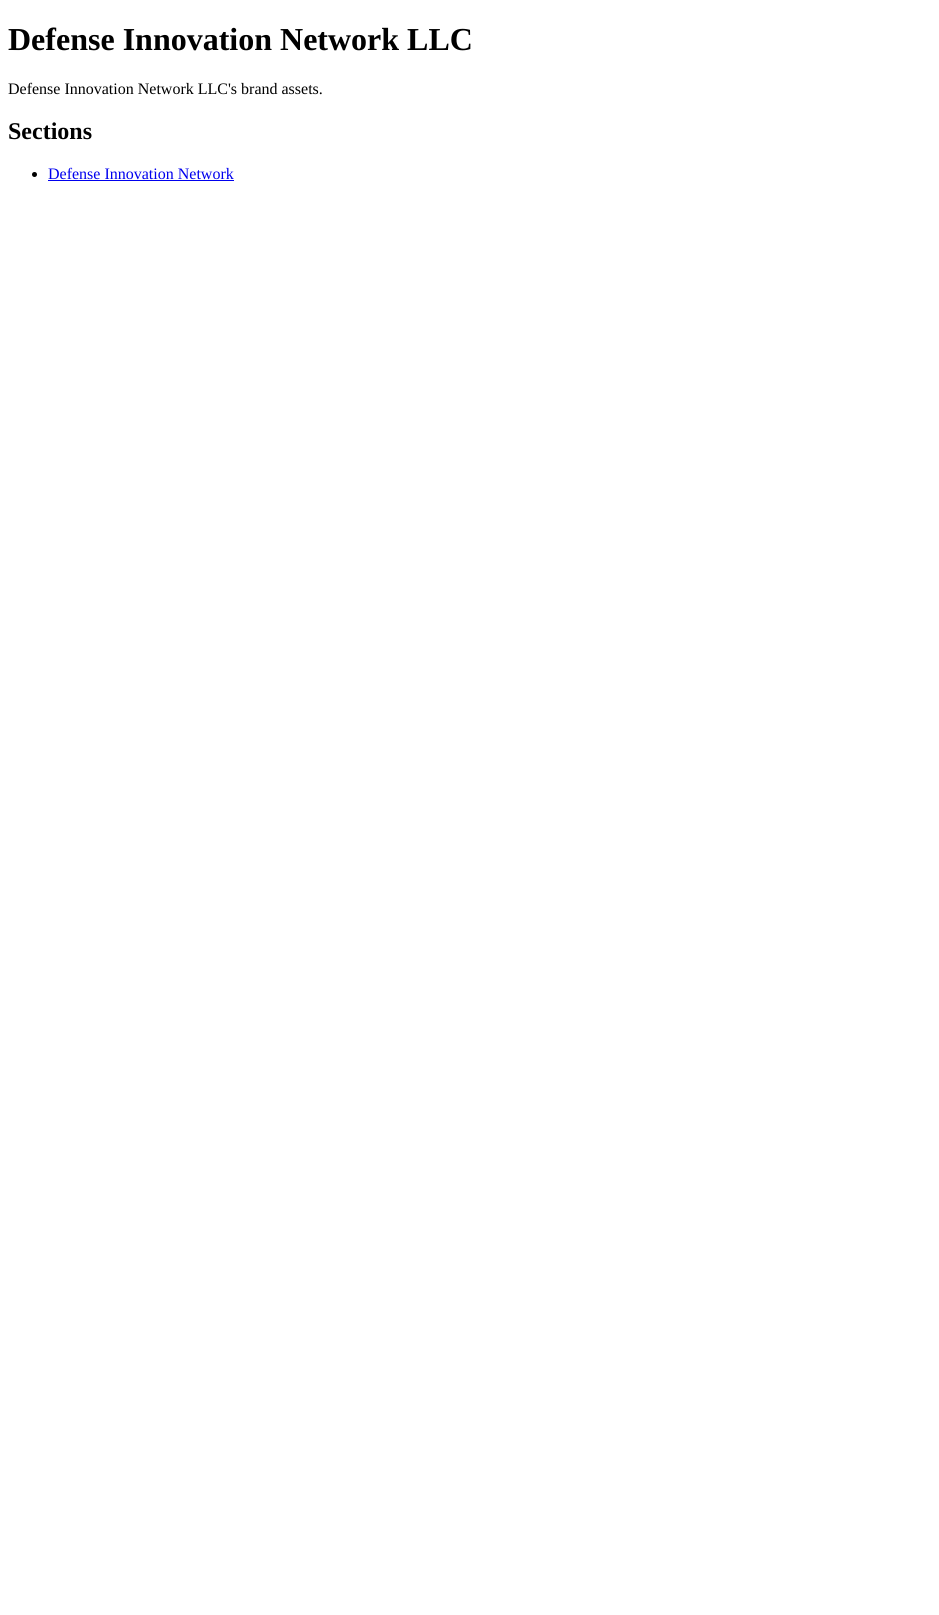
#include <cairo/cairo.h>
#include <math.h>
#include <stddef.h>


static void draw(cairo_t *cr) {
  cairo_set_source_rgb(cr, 1, 1, 1);
  cairo_paint(cr);
  cairo_set_source_rgb(cr, 0, 0, 0);
  cairo_arc(cr, 34.5, 174.5, 2.5, 0, 2 * M_PI);
  cairo_fill(cr);
  cairo_set_source_rgb(cr, 0, 0, 238 / 255.0);
  cairo_rectangle(cr, 48, 180, 186, 1);
  cairo_fill(cr);
  cairo_select_font_face(cr, "Liberation Serif", CAIRO_FONT_SLANT_NORMAL, CAIRO_FONT_WEIGHT_BOLD);
  cairo_set_font_size(cr, 32);
  cairo_set_source_rgb(cr, 0, 0, 0);
  cairo_move_to(cr, 8, 50);
  cairo_show_text(cr, "Defense Innovation Network LLC");
  cairo_select_font_face(cr, "Liberation Serif", CAIRO_FONT_SLANT_NORMAL, CAIRO_FONT_WEIGHT_NORMAL);
  cairo_set_font_size(cr, 16);
  cairo_move_to(cr, 8, 94);
  cairo_show_text(cr, "Defense Innovation Network LLC's brand assets.");
  cairo_select_font_face(cr, "Liberation Serif", CAIRO_FONT_SLANT_NORMAL, CAIRO_FONT_WEIGHT_BOLD);
  cairo_set_font_size(cr, 24);
  cairo_move_to(cr, 8, 139);
  cairo_show_text(cr, "Sections");
  cairo_select_font_face(cr, "Liberation Serif", CAIRO_FONT_SLANT_NORMAL, CAIRO_FONT_WEIGHT_NORMAL);
  cairo_set_font_size(cr, 16);
  cairo_set_source_rgb(cr, 0, 0, 238 / 255.0);
  cairo_move_to(cr, 48, 179);
  cairo_show_text(cr, "Defense Innovation Network");
}

int main(void) {
  cairo_surface_t *surface = cairo_image_surface_create(CAIRO_FORMAT_RGB24, 939, 1615);
  cairo_t *cr = cairo_create(surface);
  cairo_font_options_t *options = cairo_font_options_create();
  cairo_font_options_set_hint_metrics(options, CAIRO_HINT_METRICS_OFF);
  cairo_font_options_set_hint_style(options, CAIRO_HINT_STYLE_NONE);
  cairo_set_font_options(cr, options);
  cairo_set_miter_limit(cr, 4);
  draw(cr);
  cairo_surface_write_to_png(surface, "out.png");
  cairo_font_options_destroy(options);
  cairo_destroy(cr);
  cairo_surface_destroy(surface);
  return 0;
}
